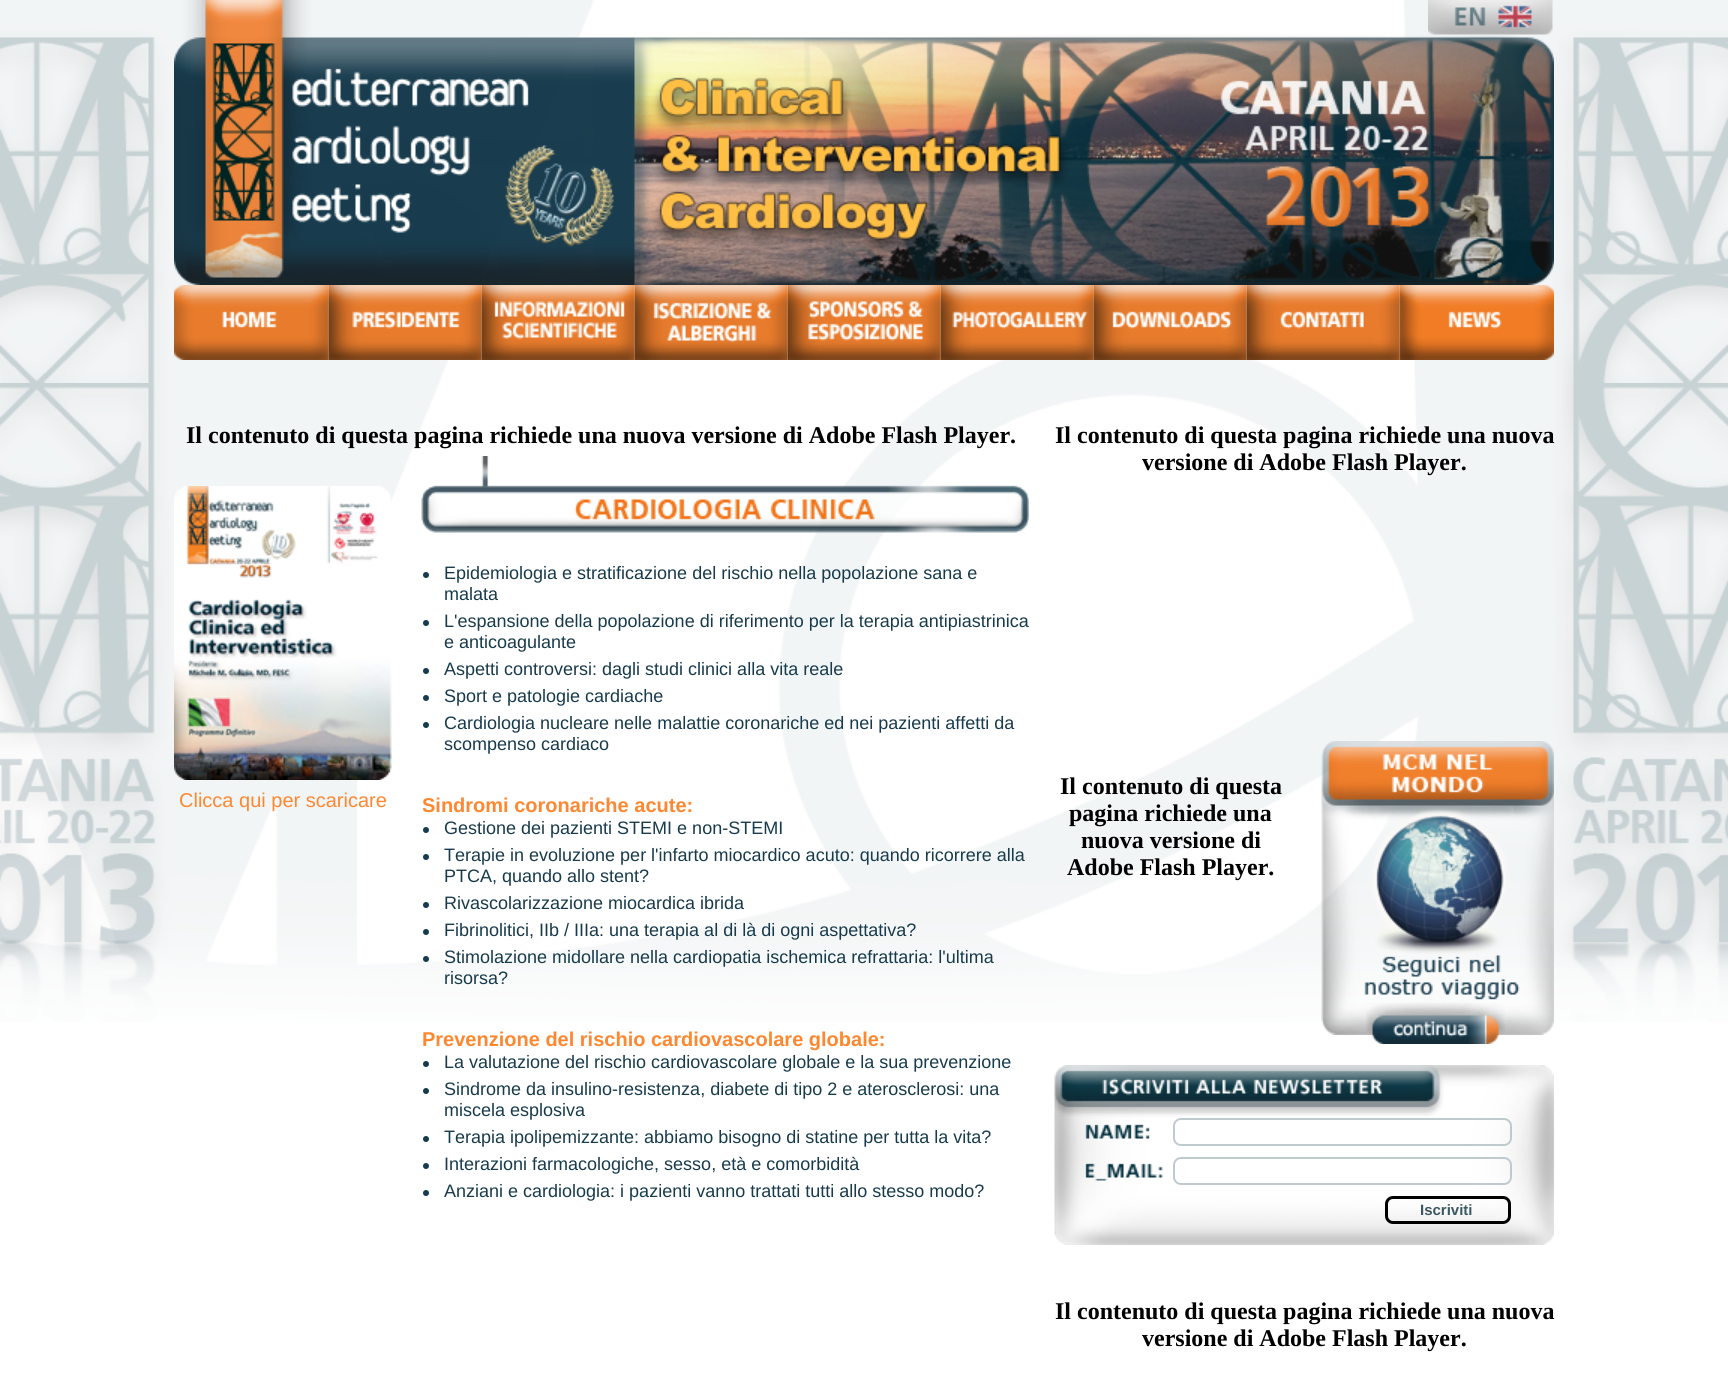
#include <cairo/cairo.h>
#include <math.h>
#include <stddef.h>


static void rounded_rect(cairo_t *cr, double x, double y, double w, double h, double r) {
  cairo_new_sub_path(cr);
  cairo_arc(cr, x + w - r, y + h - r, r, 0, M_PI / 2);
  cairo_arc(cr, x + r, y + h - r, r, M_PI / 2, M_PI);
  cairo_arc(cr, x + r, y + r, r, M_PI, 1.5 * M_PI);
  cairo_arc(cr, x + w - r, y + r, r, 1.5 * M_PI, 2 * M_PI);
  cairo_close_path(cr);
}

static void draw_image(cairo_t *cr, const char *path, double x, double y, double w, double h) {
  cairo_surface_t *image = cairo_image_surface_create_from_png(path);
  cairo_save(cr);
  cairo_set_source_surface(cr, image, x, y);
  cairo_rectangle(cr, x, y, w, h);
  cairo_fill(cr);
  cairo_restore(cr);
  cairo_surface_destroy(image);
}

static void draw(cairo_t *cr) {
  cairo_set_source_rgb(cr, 1, 1, 1);
  cairo_paint(cr);
  draw_image(cr, "images/1.png", 0, 0, 1728, 1022);
  draw_image(cr, "images/2.png", 174, 285, 155, 75);
  draw_image(cr, "images/3.png", 328, 285, 154, 75);
  draw_image(cr, "images/4.png", 481, 285, 154, 75);
  draw_image(cr, "images/5.png", 634, 285, 154, 75);
  draw_image(cr, "images/6.png", 787, 285, 154, 75);
  draw_image(cr, "images/7.png", 940, 285, 154, 75);
  draw_image(cr, "images/8.png", 1093, 285, 154, 75);
  draw_image(cr, "images/9.png", 1246, 285, 154, 75);
  draw_image(cr, "images/10.png", 1399, 285, 155, 75);
  draw_image(cr, "images/11.png", 174, 0, 1380, 285);
  draw_image(cr, "images/12.png", 1428, 0, 125, 35);
  draw_image(cr, "images/13.png", 421, 456, 608, 77);
  cairo_set_source_rgb(cr, 24 / 255.0, 59 / 255.0, 76 / 255.0);
  cairo_arc(cr, 426, 575, 3, 0, 2 * M_PI);
  cairo_fill(cr);
  cairo_arc(cr, 426, 623, 3, 0, 2 * M_PI);
  cairo_fill(cr);
  cairo_arc(cr, 426, 671, 3, 0, 2 * M_PI);
  cairo_fill(cr);
  cairo_arc(cr, 426, 698, 3, 0, 2 * M_PI);
  cairo_fill(cr);
  cairo_arc(cr, 426, 725, 3, 0, 2 * M_PI);
  cairo_fill(cr);
  draw_image(cr, "images/14.png", 174, 486, 218, 294);
  cairo_arc(cr, 426, 830, 3, 0, 2 * M_PI);
  cairo_fill(cr);
  cairo_arc(cr, 426, 857, 3, 0, 2 * M_PI);
  cairo_fill(cr);
  cairo_arc(cr, 426, 905, 3, 0, 2 * M_PI);
  cairo_fill(cr);
  cairo_arc(cr, 426, 932, 3, 0, 2 * M_PI);
  cairo_fill(cr);
  cairo_arc(cr, 426, 959, 3, 0, 2 * M_PI);
  cairo_fill(cr);
  cairo_arc(cr, 426, 1064, 3, 0, 2 * M_PI);
  cairo_fill(cr);
  cairo_arc(cr, 426, 1091, 3, 0, 2 * M_PI);
  cairo_fill(cr);
  cairo_arc(cr, 426, 1139, 3, 0, 2 * M_PI);
  cairo_fill(cr);
  cairo_arc(cr, 426, 1166, 3, 0, 2 * M_PI);
  cairo_fill(cr);
  cairo_arc(cr, 426, 1193, 3, 0, 2 * M_PI);
  cairo_fill(cr);
  draw_image(cr, "images/15.png", 1321, 741, 233, 294);
  draw_image(cr, "images/16.png", 1366, 1003, 139, 41);
  draw_image(cr, "images/17.png", 1054, 1065, 500, 180);
  rounded_rect(cr, 1174, 1119, 337, 26, 7);
  cairo_set_source_rgb(cr, 191 / 255.0, 202 / 255.0, 207 / 255.0);
  cairo_stroke(cr);
  rounded_rect(cr, 1174, 1158, 337, 26, 7);
  cairo_stroke(cr);
  rounded_rect(cr, 1386.5, 1197.5, 123, 25, 6.5);
  cairo_set_source_rgb(cr, 0, 0, 0);
  cairo_set_line_width(cr, 3);
  cairo_stroke(cr);
  cairo_select_font_face(cr, "Liberation Serif", CAIRO_FONT_SLANT_NORMAL, CAIRO_FONT_WEIGHT_BOLD);
  cairo_set_font_size(cr, 24);
  cairo_move_to(cr, 186, 443);
  cairo_show_text(cr, "Il contenuto di questa pagina richiede una nuova versione di Adobe Flash Player.");
  cairo_select_font_face(cr, "Liberation Sans", CAIRO_FONT_SLANT_NORMAL, CAIRO_FONT_WEIGHT_NORMAL);
  cairo_set_font_size(cr, 18);
  cairo_set_source_rgb(cr, 24 / 255.0, 59 / 255.0, 76 / 255.0);
  cairo_move_to(cr, 444, 579);
  cairo_show_text(cr, "Epidemiologia e stratificazione del rischio nella popolazione sana e");
  cairo_move_to(cr, 444, 600);
  cairo_show_text(cr, "malata");
  cairo_move_to(cr, 444, 627);
  cairo_show_text(cr, "L'espansione della popolazione di riferimento per la terapia antipiastrinica");
  cairo_move_to(cr, 444, 648);
  cairo_show_text(cr, "e anticoagulante");
  cairo_move_to(cr, 444, 675);
  cairo_show_text(cr, "Aspetti controversi: dagli studi clinici alla vita reale");
  cairo_move_to(cr, 444, 702);
  cairo_show_text(cr, "Sport e patologie cardiache");
  cairo_move_to(cr, 444, 729);
  cairo_show_text(cr, "Cardiologia nucleare nelle malattie coronariche ed nei pazienti affetti da");
  cairo_move_to(cr, 444, 750);
  cairo_show_text(cr, "scompenso cardiaco");
  cairo_set_font_size(cr, 20);
  cairo_set_source_rgb(cr, 254 / 255.0, 135 / 255.0, 48 / 255.0);
  cairo_move_to(cr, 179, 807);
  cairo_show_text(cr, "Clicca qui per scaricare");
  cairo_select_font_face(cr, "Liberation Sans", CAIRO_FONT_SLANT_NORMAL, CAIRO_FONT_WEIGHT_BOLD);
  cairo_move_to(cr, 422, 812);
  cairo_show_text(cr, "Sindromi coronariche acute:");
  cairo_select_font_face(cr, "Liberation Sans", CAIRO_FONT_SLANT_NORMAL, CAIRO_FONT_WEIGHT_NORMAL);
  cairo_set_font_size(cr, 18);
  cairo_set_source_rgb(cr, 24 / 255.0, 59 / 255.0, 76 / 255.0);
  cairo_move_to(cr, 444, 834);
  cairo_show_text(cr, "Gestione dei pazienti STEMI e non-STEMI");
  cairo_move_to(cr, 444, 861);
  cairo_show_text(cr, "Terapie in evoluzione per l'infarto miocardico acuto: quando ricorrere alla");
  cairo_move_to(cr, 444, 882);
  cairo_show_text(cr, "PTCA, quando allo stent?");
  cairo_move_to(cr, 444, 909);
  cairo_show_text(cr, "Rivascolarizzazione miocardica ibrida");
  cairo_move_to(cr, 444, 936);
  cairo_show_text(cr, "Fibrinolitici, IIb / IIIa: una terapia al di là di ogni aspettativa?");
  cairo_move_to(cr, 444, 963);
  cairo_show_text(cr, "Stimolazione midollare nella cardiopatia ischemica refrattaria: l'ultima");
  cairo_move_to(cr, 444, 984);
  cairo_show_text(cr, "risorsa?");
  cairo_select_font_face(cr, "Liberation Sans", CAIRO_FONT_SLANT_NORMAL, CAIRO_FONT_WEIGHT_BOLD);
  cairo_set_font_size(cr, 20);
  cairo_set_source_rgb(cr, 254 / 255.0, 135 / 255.0, 48 / 255.0);
  cairo_move_to(cr, 422, 1046);
  cairo_show_text(cr, "Prevenzione del rischio cardiovascolare globale:");
  cairo_select_font_face(cr, "Liberation Sans", CAIRO_FONT_SLANT_NORMAL, CAIRO_FONT_WEIGHT_NORMAL);
  cairo_set_font_size(cr, 18);
  cairo_set_source_rgb(cr, 24 / 255.0, 59 / 255.0, 76 / 255.0);
  cairo_move_to(cr, 444, 1068);
  cairo_show_text(cr, "La valutazione del rischio cardiovascolare globale e la sua prevenzione");
  cairo_move_to(cr, 444, 1095);
  cairo_show_text(cr, "Sindrome da insulino-resistenza, diabete di tipo 2 e aterosclerosi: una");
  cairo_move_to(cr, 444, 1116);
  cairo_show_text(cr, "miscela esplosiva");
  cairo_move_to(cr, 444, 1143);
  cairo_show_text(cr, "Terapia ipolipemizzante: abbiamo bisogno di statine per tutta la vita?");
  cairo_move_to(cr, 444, 1170);
  cairo_show_text(cr, "Interazioni farmacologiche, sesso, età e comorbidità");
  cairo_move_to(cr, 444, 1197);
  cairo_show_text(cr, "Anziani e cardiologia: i pazienti vanno trattati tutti allo stesso modo?");
  cairo_select_font_face(cr, "Liberation Serif", CAIRO_FONT_SLANT_NORMAL, CAIRO_FONT_WEIGHT_BOLD);
  cairo_set_font_size(cr, 24);
  cairo_set_source_rgb(cr, 0, 0, 0);
  cairo_move_to(cr, 1055, 443);
  cairo_show_text(cr, "Il contenuto di questa pagina richiede una nuova");
  cairo_move_to(cr, 1142, 470);
  cairo_show_text(cr, "versione di Adobe Flash Player.");
  cairo_move_to(cr, 1060, 794);
  cairo_show_text(cr, "Il contenuto di questa");
  cairo_move_to(cr, 1069, 821);
  cairo_show_text(cr, "pagina richiede una");
  cairo_move_to(cr, 1081, 848);
  cairo_show_text(cr, "nuova versione di");
  cairo_move_to(cr, 1067, 875);
  cairo_show_text(cr, "Adobe Flash Player.");
  cairo_select_font_face(cr, "Liberation Sans", CAIRO_FONT_SLANT_NORMAL, CAIRO_FONT_WEIGHT_BOLD);
  cairo_set_font_size(cr, 15);
  cairo_set_source_rgb(cr, 60 / 255.0, 88 / 255.0, 100 / 255.0);
  cairo_move_to(cr, 1420, 1215);
  cairo_show_text(cr, "Iscriviti");
  cairo_select_font_face(cr, "Liberation Serif", CAIRO_FONT_SLANT_NORMAL, CAIRO_FONT_WEIGHT_BOLD);
  cairo_set_font_size(cr, 24);
  cairo_set_source_rgb(cr, 0, 0, 0);
  cairo_move_to(cr, 1055, 1319);
  cairo_show_text(cr, "Il contenuto di questa pagina richiede una nuova");
  cairo_move_to(cr, 1142, 1346);
  cairo_show_text(cr, "versione di Adobe Flash Player.");
}

int main(void) {
  cairo_surface_t *surface = cairo_image_surface_create(CAIRO_FORMAT_RGB24, 1728, 1396);
  cairo_t *cr = cairo_create(surface);
  cairo_font_options_t *options = cairo_font_options_create();
  cairo_font_options_set_hint_metrics(options, CAIRO_HINT_METRICS_OFF);
  cairo_font_options_set_hint_style(options, CAIRO_HINT_STYLE_NONE);
  cairo_set_font_options(cr, options);
  cairo_set_miter_limit(cr, 4);
  draw(cr);
  cairo_surface_write_to_png(surface, "out.png");
  cairo_font_options_destroy(options);
  cairo_destroy(cr);
  cairo_surface_destroy(surface);
  return 0;
}
